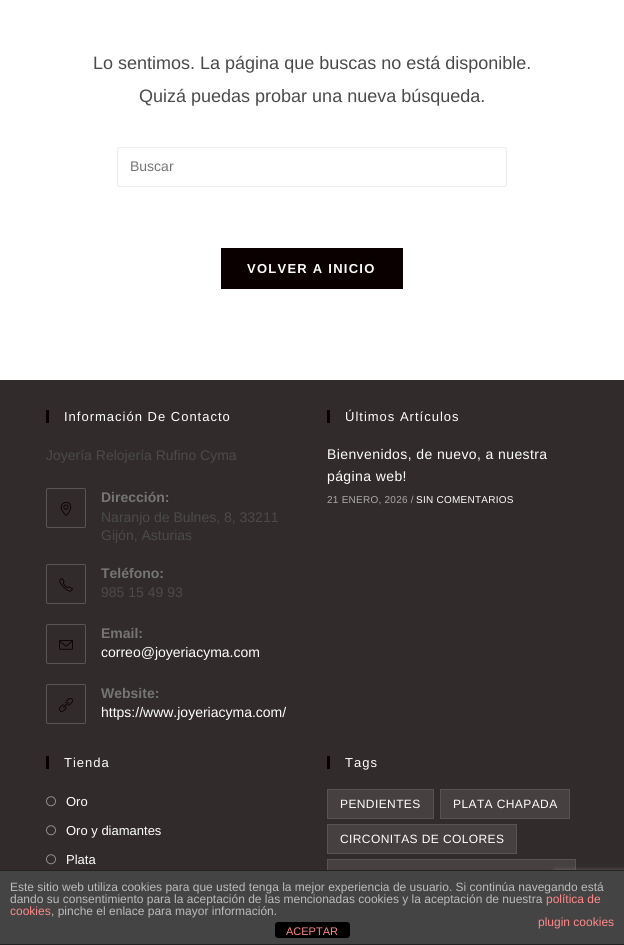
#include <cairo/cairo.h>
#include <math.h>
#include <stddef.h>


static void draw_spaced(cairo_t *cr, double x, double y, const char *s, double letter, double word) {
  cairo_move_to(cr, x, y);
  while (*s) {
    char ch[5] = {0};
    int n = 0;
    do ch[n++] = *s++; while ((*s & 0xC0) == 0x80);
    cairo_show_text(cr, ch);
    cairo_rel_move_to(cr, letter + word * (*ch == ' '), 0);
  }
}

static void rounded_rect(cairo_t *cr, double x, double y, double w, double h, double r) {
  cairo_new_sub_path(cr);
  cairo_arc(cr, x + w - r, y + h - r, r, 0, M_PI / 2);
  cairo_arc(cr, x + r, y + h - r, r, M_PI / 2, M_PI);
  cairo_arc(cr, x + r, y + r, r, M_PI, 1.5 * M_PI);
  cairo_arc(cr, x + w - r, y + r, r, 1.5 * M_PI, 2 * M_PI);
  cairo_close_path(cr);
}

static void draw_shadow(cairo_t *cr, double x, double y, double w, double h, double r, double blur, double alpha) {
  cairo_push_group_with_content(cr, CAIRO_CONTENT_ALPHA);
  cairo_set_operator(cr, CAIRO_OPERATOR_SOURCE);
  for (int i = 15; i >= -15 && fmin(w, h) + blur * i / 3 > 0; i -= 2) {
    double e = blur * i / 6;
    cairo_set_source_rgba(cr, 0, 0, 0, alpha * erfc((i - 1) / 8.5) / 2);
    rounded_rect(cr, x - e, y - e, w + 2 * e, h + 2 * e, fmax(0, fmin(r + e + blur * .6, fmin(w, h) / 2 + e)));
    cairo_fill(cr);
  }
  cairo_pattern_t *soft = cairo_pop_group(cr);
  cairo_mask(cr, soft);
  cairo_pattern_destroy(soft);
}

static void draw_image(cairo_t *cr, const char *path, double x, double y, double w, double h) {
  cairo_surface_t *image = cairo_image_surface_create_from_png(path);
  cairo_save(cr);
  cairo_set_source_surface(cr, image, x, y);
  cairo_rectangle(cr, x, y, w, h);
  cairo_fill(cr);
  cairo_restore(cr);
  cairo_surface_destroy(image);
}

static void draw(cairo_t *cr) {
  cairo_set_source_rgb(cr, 1, 1, 1);
  cairo_paint(cr);
  rounded_rect(cr, 117.5, 147.5, 389, 39, 2.5);
  cairo_set_source_rgb(cr, 236 / 255.0, 236 / 255.0, 236 / 255.0);
  cairo_set_line_width(cr, 1);
  cairo_stroke(cr);
  cairo_set_source_rgb(cr, 10 / 255.0, 0, 0);
  cairo_rectangle(cr, 221, 248, 182, 41);
  cairo_fill(cr);
  cairo_set_source_rgb(cr, 50 / 255.0, 43 / 255.0, 43 / 255.0);
  cairo_rectangle(cr, 0, 380, 624, 490);
  cairo_fill(cr);
  cairo_set_source_rgb(cr, 10 / 255.0, 0, 0);
  cairo_rectangle(cr, 46, 410, 3, 13);
  cairo_fill(cr);
  rounded_rect(cr, 46.5, 488.5, 39, 39, 1.5);
  cairo_set_source_rgb(cr, 91 / 255.0, 85 / 255.0, 85 / 255.0);
  cairo_stroke(cr);
  draw_image(cr, "images/1.png", 60, 502, 12, 14);
  rounded_rect(cr, 46.5, 564.5, 39, 39, 1.5);
  cairo_stroke(cr);
  draw_image(cr, "images/2.png", 59, 578, 14, 14);
  rounded_rect(cr, 46.5, 624.5, 39, 39, 1.5);
  cairo_stroke(cr);
  draw_image(cr, "images/3.png", 59, 640, 14, 10);
  rounded_rect(cr, 46.5, 684.5, 39, 39, 1.5);
  cairo_stroke(cr);
  draw_image(cr, "images/4.png", 59, 698, 14, 14);
  cairo_set_source_rgb(cr, 10 / 255.0, 0, 0);
  cairo_rectangle(cr, 327, 410, 3, 13);
  cairo_fill(cr);
  cairo_rectangle(cr, 46, 756, 3, 13);
  cairo_fill(cr);
  draw_image(cr, "images/5.png", 46, 796, 10, 11);
  draw_image(cr, "images/5.png", 46, 825, 10, 11);
  draw_image(cr, "images/5.png", 46, 854, 10, 11);
  cairo_rectangle(cr, 327, 756, 3, 13);
  cairo_fill(cr);
  cairo_set_source_rgb(cr, 71 / 255.0, 64 / 255.0, 64 / 255.0);
  cairo_rectangle(cr, 327.5, 789.5, 106, 29);
  cairo_fill_preserve(cr);
  cairo_set_source_rgb(cr, 89 / 255.0, 83 / 255.0, 83 / 255.0);
  cairo_stroke(cr);
  cairo_set_source_rgb(cr, 71 / 255.0, 64 / 255.0, 64 / 255.0);
  cairo_rectangle(cr, 440.5, 789.5, 129, 29);
  cairo_fill_preserve(cr);
  cairo_set_source_rgb(cr, 89 / 255.0, 83 / 255.0, 83 / 255.0);
  cairo_stroke(cr);
  cairo_set_source_rgb(cr, 71 / 255.0, 64 / 255.0, 64 / 255.0);
  cairo_rectangle(cr, 327.5, 824.5, 189, 29);
  cairo_fill_preserve(cr);
  cairo_set_source_rgb(cr, 89 / 255.0, 83 / 255.0, 83 / 255.0);
  cairo_stroke(cr);
  cairo_set_source_rgb(cr, 71 / 255.0, 64 / 255.0, 64 / 255.0);
  cairo_rectangle(cr, 328, 860, 247, 10);
  cairo_fill(cr);
  cairo_rectangle(cr, 327.5, 859.5, 248, 41);
  cairo_set_source_rgb(cr, 89 / 255.0, 83 / 255.0, 83 / 255.0);
  cairo_stroke(cr);
  cairo_set_source_rgb(cr, 128 / 255.0, 128 / 255.0, 128 / 255.0);
  draw_shadow(cr, 554, 871, 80, 60, 2, 2.5, 1);
  cairo_set_source_rgb(cr, 68 / 255.0, 68 / 255.0, 68 / 255.0);
  cairo_rectangle(cr, 0, 871, 624, 73);
  cairo_fill(cr);
  cairo_set_source_rgb(cr, 34 / 255.0, 34 / 255.0, 34 / 255.0);
  cairo_rectangle(cr, 0, 870, 624, 1);
  cairo_fill(cr);
  cairo_rectangle(cr, 0, 944, 624, 1);
  cairo_fill(cr);
  cairo_set_source_rgb(cr, 0, 0, 0);
  rounded_rect(cr, 275, 922, 75, 16, 3);
  cairo_fill(cr);
  cairo_select_font_face(cr, "Liberation Sans", CAIRO_FONT_SLANT_NORMAL, CAIRO_FONT_WEIGHT_NORMAL);
  cairo_set_font_size(cr, 18);
  cairo_set_source_rgb(cr, 74 / 255.0, 74 / 255.0, 74 / 255.0);
  cairo_move_to(cr, 93, 69);
  cairo_show_text(cr, "Lo sentimos. La página que buscas no está disponible.");
  cairo_move_to(cr, 139, 102);
  cairo_show_text(cr, "Quizá puedas probar una nueva búsqueda.");
  cairo_set_font_size(cr, 14);
  cairo_set_source_rgb(cr, 117 / 255.0, 117 / 255.0, 117 / 255.0);
  cairo_move_to(cr, 130, 171);
  cairo_show_text(cr, "Buscar");
  cairo_select_font_face(cr, "Liberation Sans", CAIRO_FONT_SLANT_NORMAL, CAIRO_FONT_WEIGHT_BOLD);
  cairo_set_font_size(cr, 13);
  cairo_set_source_rgb(cr, 1, 1, 1);
  draw_spaced(cr, 247, 273, "VOLVER A INICIO", 1.25, 0);
  cairo_select_font_face(cr, "Liberation Sans", CAIRO_FONT_SLANT_NORMAL, CAIRO_FONT_WEIGHT_NORMAL);
  draw_spaced(cr, 64, 421, "Información De Contacto", 1, 0);
  cairo_set_font_size(cr, 14);
  cairo_set_source_rgb(cr, 74 / 255.0, 74 / 255.0, 74 / 255.0);
  cairo_move_to(cr, 46, 460);
  cairo_show_text(cr, "Joyería Relojería Rufino Cyma");
  cairo_select_font_face(cr, "Liberation Sans", CAIRO_FONT_SLANT_NORMAL, CAIRO_FONT_WEIGHT_BOLD);
  cairo_set_source_rgb(cr, 117 / 255.0, 117 / 255.0, 117 / 255.0);
  cairo_move_to(cr, 101, 502);
  cairo_show_text(cr, "Dirección:");
  cairo_select_font_face(cr, "Liberation Sans", CAIRO_FONT_SLANT_NORMAL, CAIRO_FONT_WEIGHT_NORMAL);
  cairo_set_source_rgb(cr, 74 / 255.0, 74 / 255.0, 74 / 255.0);
  cairo_move_to(cr, 101, 522);
  cairo_show_text(cr, "Naranjo de Bulnes, 8, 33211");
  cairo_move_to(cr, 101, 540);
  cairo_show_text(cr, "Gijón, Asturias");
  cairo_select_font_face(cr, "Liberation Sans", CAIRO_FONT_SLANT_NORMAL, CAIRO_FONT_WEIGHT_BOLD);
  cairo_set_source_rgb(cr, 117 / 255.0, 117 / 255.0, 117 / 255.0);
  cairo_move_to(cr, 101, 578);
  cairo_show_text(cr, "Teléfono:");
  cairo_select_font_face(cr, "Liberation Sans", CAIRO_FONT_SLANT_NORMAL, CAIRO_FONT_WEIGHT_NORMAL);
  cairo_set_source_rgb(cr, 74 / 255.0, 74 / 255.0, 74 / 255.0);
  cairo_move_to(cr, 101, 597);
  cairo_show_text(cr, "985 15 49 93");
  cairo_select_font_face(cr, "Liberation Sans", CAIRO_FONT_SLANT_NORMAL, CAIRO_FONT_WEIGHT_BOLD);
  cairo_set_source_rgb(cr, 117 / 255.0, 117 / 255.0, 117 / 255.0);
  cairo_move_to(cr, 101, 638);
  cairo_show_text(cr, "Email:");
  cairo_select_font_face(cr, "Liberation Sans", CAIRO_FONT_SLANT_NORMAL, CAIRO_FONT_WEIGHT_NORMAL);
  cairo_set_source_rgb(cr, 1, 1, 1);
  cairo_move_to(cr, 101, 657);
  cairo_show_text(cr, "correo@joyeriacyma.com");
  cairo_select_font_face(cr, "Liberation Sans", CAIRO_FONT_SLANT_NORMAL, CAIRO_FONT_WEIGHT_BOLD);
  cairo_set_source_rgb(cr, 117 / 255.0, 117 / 255.0, 117 / 255.0);
  cairo_move_to(cr, 101, 698);
  cairo_show_text(cr, "Website:");
  cairo_select_font_face(cr, "Liberation Sans", CAIRO_FONT_SLANT_NORMAL, CAIRO_FONT_WEIGHT_NORMAL);
  cairo_set_source_rgb(cr, 1, 1, 1);
  cairo_move_to(cr, 101, 717);
  cairo_show_text(cr, "https://www.joyeriacyma.com/");
  cairo_set_font_size(cr, 13);
  draw_spaced(cr, 345, 421, "Últimos Artículos", 1, 0);
  cairo_set_font_size(cr, 14);
  draw_spaced(cr, 327, 459, "Bienvenidos, de nuevo, a nuestra", 0.4, 0);
  draw_spaced(cr, 327, 481, "página web!", 0.4, 0);
  cairo_set_font_size(cr, 10);
  cairo_set_source_rgb(cr, 170 / 255.0, 170 / 255.0, 170 / 255.0);
  draw_spaced(cr, 327, 503, "21 ENERO, 2026 /", 0.25, 0);
  cairo_set_source_rgb(cr, 1, 1, 1);
  draw_spaced(cr, 416, 503, "SIN COMENTARIOS", 0.25, 0);
  cairo_set_font_size(cr, 13);
  draw_spaced(cr, 64, 767, "Tienda", 1, 0);
  cairo_move_to(cr, 66, 806);
  cairo_show_text(cr, "Oro");
  cairo_move_to(cr, 66, 835);
  cairo_show_text(cr, "Oro y diamantes");
  cairo_move_to(cr, 66, 864);
  cairo_show_text(cr, "Plata");
  draw_spaced(cr, 345, 767, "Tags", 1, 0);
  cairo_set_font_size(cr, 12);
  draw_spaced(cr, 340, 808, "PENDIENTES", 0.4, 0);
  draw_spaced(cr, 453, 808, "PLATA CHAPADA", 0.4, 0);
  draw_spaced(cr, 340, 843, "CIRCONITAS DE COLORES", 0.4, 0);
  cairo_set_source_rgb(cr, 187 / 255.0, 187 / 255.0, 187 / 255.0);
  cairo_move_to(cr, 10, 891);
  cairo_show_text(cr, "Este sitio web utiliza cookies para que usted tenga la mejor experiencia de usuario. Si continúa navegando está");
  cairo_move_to(cr, 10, 903);
  cairo_show_text(cr, "dando su consentimiento para la aceptación de las mencionadas cookies y la aceptación de nuestra");
  cairo_set_source_rgb(cr, 1, 136 / 255.0, 136 / 255.0);
  cairo_move_to(cr, 546, 903);
  cairo_show_text(cr, "política de");
  cairo_move_to(cr, 10, 915);
  cairo_show_text(cr, "cookies");
  cairo_set_source_rgb(cr, 187 / 255.0, 187 / 255.0, 187 / 255.0);
  cairo_move_to(cr, 51, 915);
  cairo_show_text(cr, ", pinche el enlace para mayor información.");
  cairo_set_source_rgb(cr, 1, 136 / 255.0, 136 / 255.0);
  cairo_move_to(cr, 538, 926);
  cairo_show_text(cr, "plugin cookies");
  cairo_set_font_size(cr, 11);
  cairo_move_to(cr, 286, 935);
  cairo_show_text(cr, "ACEPTAR");
}

int main(void) {
  cairo_surface_t *surface = cairo_image_surface_create(CAIRO_FORMAT_RGB24, 624, 945);
  cairo_t *cr = cairo_create(surface);
  cairo_font_options_t *options = cairo_font_options_create();
  cairo_font_options_set_hint_metrics(options, CAIRO_HINT_METRICS_OFF);
  cairo_font_options_set_hint_style(options, CAIRO_HINT_STYLE_NONE);
  cairo_set_font_options(cr, options);
  cairo_set_miter_limit(cr, 4);
  draw(cr);
  cairo_surface_write_to_png(surface, "out.png");
  cairo_font_options_destroy(options);
  cairo_destroy(cr);
  cairo_surface_destroy(surface);
  return 0;
}
